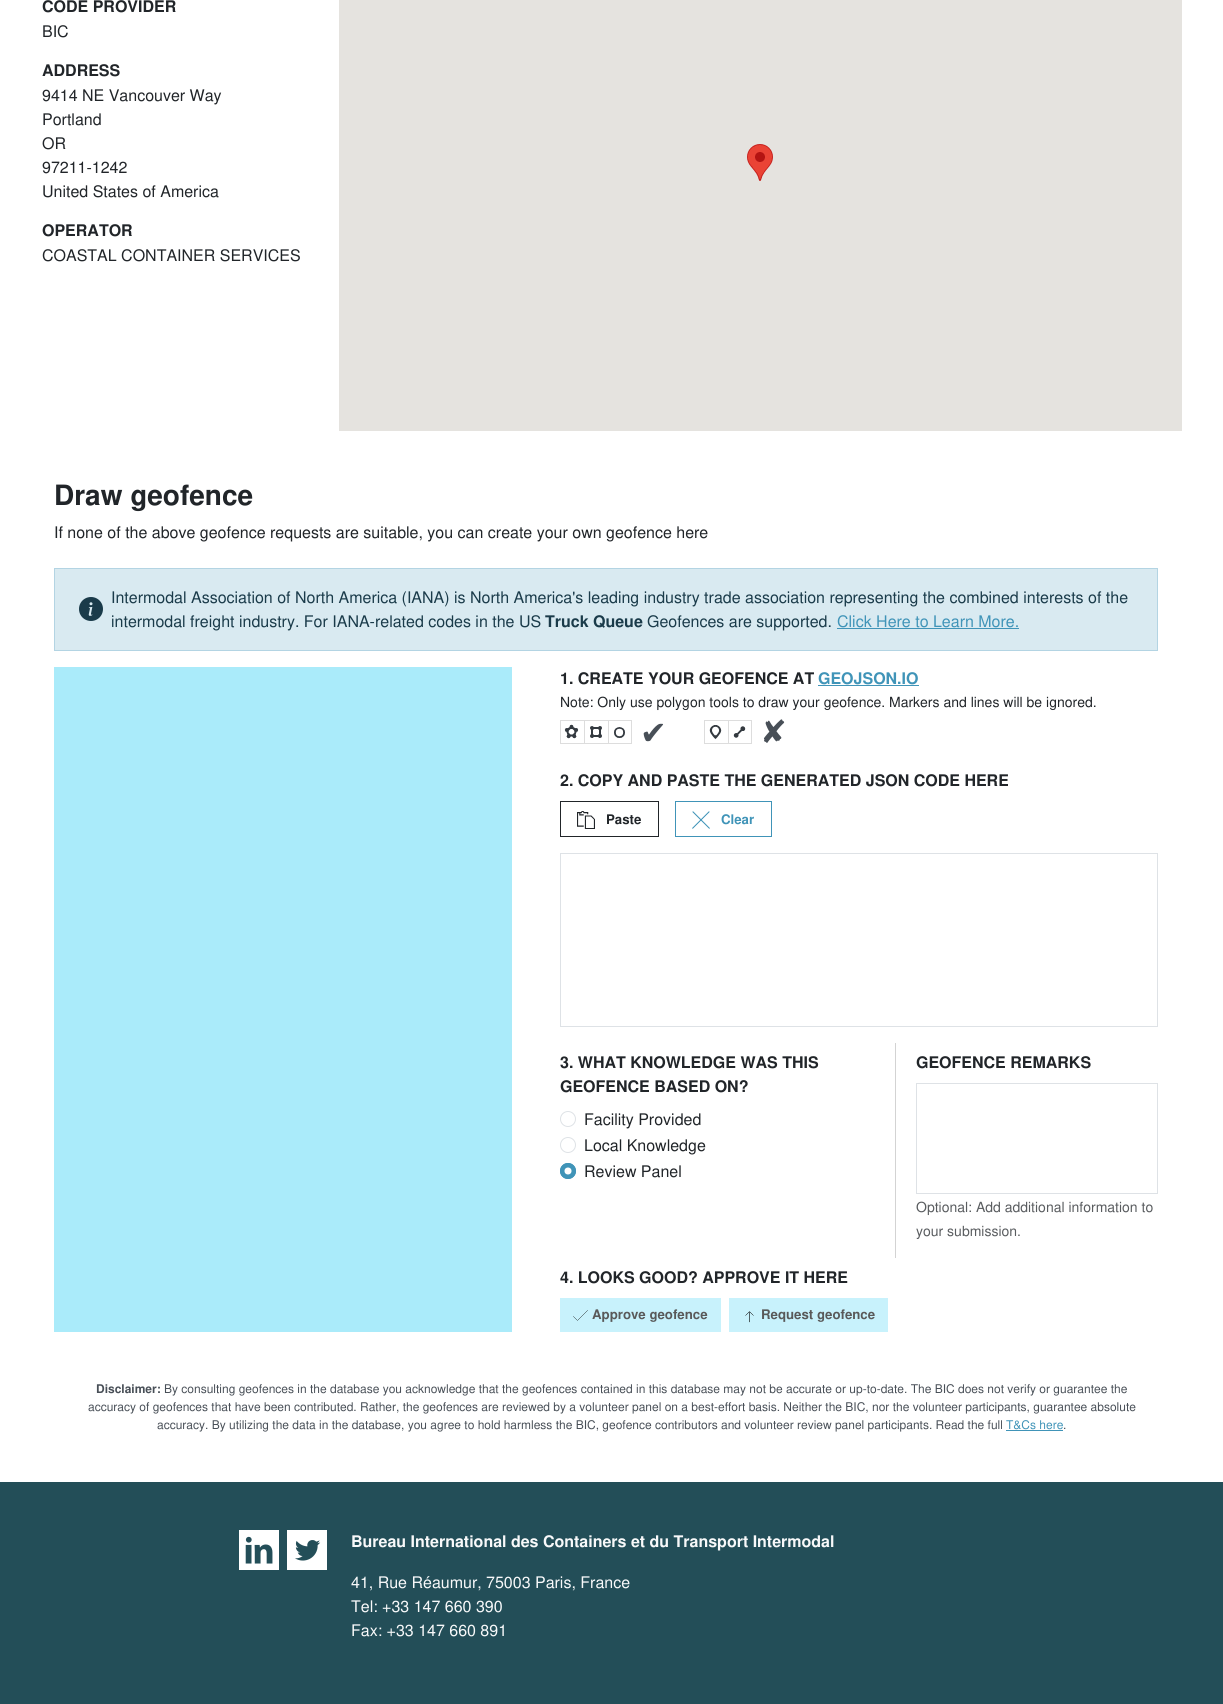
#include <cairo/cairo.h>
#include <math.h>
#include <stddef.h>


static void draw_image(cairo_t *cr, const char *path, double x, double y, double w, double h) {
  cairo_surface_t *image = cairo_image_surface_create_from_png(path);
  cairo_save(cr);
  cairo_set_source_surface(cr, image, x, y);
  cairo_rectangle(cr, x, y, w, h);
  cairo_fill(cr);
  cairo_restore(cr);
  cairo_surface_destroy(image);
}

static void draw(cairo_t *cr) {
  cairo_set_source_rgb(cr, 1, 1, 1);
  cairo_paint(cr);
  cairo_set_source_rgb(cr, 229 / 255.0, 227 / 255.0, 223 / 255.0);
  cairo_rectangle(cr, 339, 0, 843, 431);
  cairo_fill(cr);
  draw_image(cr, "images/1.png", 747, 144, 26, 37);
  cairo_set_source_rgb(cr, 217 / 255.0, 234 / 255.0, 241 / 255.0);
  cairo_rectangle(cr, 54.5, 568.5, 1103, 82);
  cairo_fill_preserve(cr);
  cairo_set_source_rgb(cr, 179 / 255.0, 212 / 255.0, 227 / 255.0);
  cairo_set_line_width(cr, 1);
  cairo_stroke(cr);
  draw_image(cr, "images/2.png", 79, 597, 24, 24);
  cairo_set_source_rgb(cr, 64 / 255.0, 148 / 255.0, 184 / 255.0);
  cairo_rectangle(cr, 837, 628, 182, 1);
  cairo_fill(cr);
  cairo_set_source_rgb(cr, 170 / 255.0, 235 / 255.0, 250 / 255.0);
  cairo_rectangle(cr, 54, 667, 458, 665);
  cairo_fill(cr);
  cairo_set_source_rgb(cr, 64 / 255.0, 148 / 255.0, 184 / 255.0);
  cairo_rectangle(cr, 818, 685, 101, 1);
  cairo_fill(cr);
  cairo_set_source_rgb(cr, 221 / 255.0, 221 / 255.0, 221 / 255.0);
  cairo_rectangle(cr, 560, 720, 48, 1);
  cairo_fill(cr);
  cairo_rectangle(cr, 560, 743, 48, 1);
  cairo_fill(cr);
  cairo_rectangle(cr, 560, 720, 1, 24);
  cairo_fill(cr);
  draw_image(cr, "images/3.png", 564, 724, 15, 15);
  cairo_rectangle(cr, 584, 720, 1, 24);
  cairo_fill(cr);
  draw_image(cr, "images/4.png", 590, 726, 12, 12);
  cairo_rectangle(cr, 608.5, 720.5, 23, 23);
  cairo_stroke(cr);
  draw_image(cr, "images/5.png", 614, 727, 11, 11);
  cairo_rectangle(cr, 704, 720, 24, 1);
  cairo_fill(cr);
  cairo_rectangle(cr, 704, 743, 24, 1);
  cairo_fill(cr);
  cairo_rectangle(cr, 704, 720, 1, 24);
  cairo_fill(cr);
  draw_image(cr, "images/6.png", 709, 725, 13, 15);
  cairo_rectangle(cr, 728.5, 720.5, 23, 23);
  cairo_stroke(cr);
  draw_image(cr, "images/7.png", 733, 726, 13, 12);
  cairo_rectangle(cr, 560.5, 801.5, 98, 35);
  cairo_set_source_rgb(cr, 33 / 255.0, 37 / 255.0, 41 / 255.0);
  cairo_stroke(cr);
  draw_image(cr, "images/8.png", 577, 811, 18, 18);
  cairo_rectangle(cr, 675.5, 801.5, 96, 35);
  cairo_set_source_rgb(cr, 64 / 255.0, 148 / 255.0, 184 / 255.0);
  cairo_stroke(cr);
  draw_image(cr, "images/9.png", 692, 811, 18, 18);
  cairo_rectangle(cr, 560.5, 853.5, 597, 173);
  cairo_set_source_rgb(cr, 222 / 255.0, 226 / 255.0, 230 / 255.0);
  cairo_stroke(cr);
  cairo_set_source_rgb(cr, 211 / 255.0, 211 / 255.0, 211 / 255.0);
  cairo_rectangle(cr, 895, 1043, 1, 215);
  cairo_fill(cr);
  cairo_arc(cr, 568, 1119, 7.5, 0, 2 * M_PI);
  cairo_set_source_rgb(cr, 222 / 255.0, 226 / 255.0, 230 / 255.0);
  cairo_stroke(cr);
  cairo_arc(cr, 568, 1145, 7.5, 0, 2 * M_PI);
  cairo_stroke(cr);
  cairo_set_source_rgb(cr, 64 / 255.0, 148 / 255.0, 184 / 255.0);
  cairo_arc(cr, 568, 1171, 8, 0, 2 * M_PI);
  cairo_fill(cr);
  cairo_set_source_rgb(cr, 1, 1, 1);
  cairo_arc(cr, 568, 1171, 3.5, 0, 2 * M_PI);
  cairo_fill(cr);
  cairo_arc(cr, 568, 1171, 7.5, 0, 2 * M_PI);
  cairo_set_source_rgb(cr, 64 / 255.0, 148 / 255.0, 184 / 255.0);
  cairo_stroke(cr);
  cairo_rectangle(cr, 916.5, 1083.5, 241, 110);
  cairo_set_source_rgb(cr, 222 / 255.0, 226 / 255.0, 230 / 255.0);
  cairo_stroke(cr);
  cairo_set_source_rgb(cr, 200 / 255.0, 242 / 255.0, 252 / 255.0);
  cairo_rectangle(cr, 560, 1298, 161, 34);
  cairo_fill(cr);
  draw_image(cr, "images/10.png", 573, 1310, 15, 11);
  cairo_rectangle(cr, 729, 1298, 159, 34);
  cairo_fill(cr);
  draw_image(cr, "images/11.png", 745, 1311, 9, 12);
  cairo_set_source_rgb(cr, 64 / 255.0, 148 / 255.0, 184 / 255.0);
  cairo_rectangle(cr, 1006, 1430, 57, 1);
  cairo_fill(cr);
  cairo_set_source_rgb(cr, 35 / 255.0, 78 / 255.0, 88 / 255.0);
  cairo_rectangle(cr, 0, 1482, 1223, 222);
  cairo_fill(cr);
  draw_image(cr, "images/12.png", 239, 1530, 40, 40);
  draw_image(cr, "images/13.png", 287, 1530, 40, 40);
  cairo_select_font_face(cr, "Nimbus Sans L", CAIRO_FONT_SLANT_NORMAL, CAIRO_FONT_WEIGHT_BOLD);
  cairo_set_font_size(cr, 16);
  cairo_set_source_rgb(cr, 33 / 255.0, 37 / 255.0, 41 / 255.0);
  cairo_move_to(cr, 42, 12);
  cairo_show_text(cr, "CODE PROVIDER");
  cairo_select_font_face(cr, "Nimbus Sans L", CAIRO_FONT_SLANT_NORMAL, CAIRO_FONT_WEIGHT_NORMAL);
  cairo_move_to(cr, 42, 37);
  cairo_show_text(cr, "BIC");
  cairo_select_font_face(cr, "Nimbus Sans L", CAIRO_FONT_SLANT_NORMAL, CAIRO_FONT_WEIGHT_BOLD);
  cairo_move_to(cr, 42, 76);
  cairo_show_text(cr, "ADDRESS");
  cairo_select_font_face(cr, "Nimbus Sans L", CAIRO_FONT_SLANT_NORMAL, CAIRO_FONT_WEIGHT_NORMAL);
  cairo_move_to(cr, 42, 101);
  cairo_show_text(cr, "9414 NE Vancouver Way");
  cairo_move_to(cr, 42, 125);
  cairo_show_text(cr, "Portland");
  cairo_move_to(cr, 42, 149);
  cairo_show_text(cr, "OR");
  cairo_move_to(cr, 42, 173);
  cairo_show_text(cr, "97211-1242");
  cairo_move_to(cr, 42, 197);
  cairo_show_text(cr, "United States of America");
  cairo_select_font_face(cr, "Nimbus Sans L", CAIRO_FONT_SLANT_NORMAL, CAIRO_FONT_WEIGHT_BOLD);
  cairo_move_to(cr, 42, 236);
  cairo_show_text(cr, "OPERATOR");
  cairo_select_font_face(cr, "Nimbus Sans L", CAIRO_FONT_SLANT_NORMAL, CAIRO_FONT_WEIGHT_NORMAL);
  cairo_move_to(cr, 42, 261);
  cairo_show_text(cr, "COASTAL CONTAINER SERVICES");
  cairo_select_font_face(cr, "Nimbus Sans L", CAIRO_FONT_SLANT_NORMAL, CAIRO_FONT_WEIGHT_BOLD);
  cairo_set_font_size(cr, 28);
  cairo_move_to(cr, 54, 505);
  cairo_show_text(cr, "Draw geofence");
  cairo_select_font_face(cr, "Nimbus Sans L", CAIRO_FONT_SLANT_NORMAL, CAIRO_FONT_WEIGHT_NORMAL);
  cairo_set_font_size(cr, 16);
  cairo_move_to(cr, 54, 538);
  cairo_show_text(cr, "If none of the above geofence requests are suitable, you can create your own geofence here");
  cairo_set_source_rgb(cr, 26 / 255.0, 59 / 255.0, 74 / 255.0);
  cairo_move_to(cr, 111, 603);
  cairo_show_text(cr, "Intermodal Association of North America (IANA) is North America's leading industry trade association representing the combined interests of the");
  cairo_move_to(cr, 111, 627);
  cairo_show_text(cr, "intermodal freight industry. For IANA-related codes in the US");
  cairo_select_font_face(cr, "Nimbus Sans L", CAIRO_FONT_SLANT_NORMAL, CAIRO_FONT_WEIGHT_BOLD);
  cairo_move_to(cr, 545, 627);
  cairo_show_text(cr, "Truck Queue");
  cairo_select_font_face(cr, "Nimbus Sans L", CAIRO_FONT_SLANT_NORMAL, CAIRO_FONT_WEIGHT_NORMAL);
  cairo_move_to(cr, 647, 627);
  cairo_show_text(cr, "Geofences are supported.");
  cairo_set_source_rgb(cr, 64 / 255.0, 148 / 255.0, 184 / 255.0);
  cairo_move_to(cr, 837, 627);
  cairo_show_text(cr, "Click Here to Learn More.");
  cairo_select_font_face(cr, "Nimbus Sans L", CAIRO_FONT_SLANT_NORMAL, CAIRO_FONT_WEIGHT_BOLD);
  cairo_set_source_rgb(cr, 33 / 255.0, 37 / 255.0, 41 / 255.0);
  cairo_move_to(cr, 560, 684);
  cairo_show_text(cr, "1. CREATE YOUR GEOFENCE AT");
  cairo_set_source_rgb(cr, 64 / 255.0, 148 / 255.0, 184 / 255.0);
  cairo_move_to(cr, 818, 684);
  cairo_show_text(cr, "GEOJSON.IO");
  cairo_select_font_face(cr, "Nimbus Sans L", CAIRO_FONT_SLANT_NORMAL, CAIRO_FONT_WEIGHT_NORMAL);
  cairo_set_font_size(cr, 14);
  cairo_set_source_rgb(cr, 33 / 255.0, 37 / 255.0, 41 / 255.0);
  cairo_move_to(cr, 560, 707);
  cairo_show_text(cr, "Note: Only use polygon tools to draw your geofence. Markers and lines will be ignored.");
  cairo_select_font_face(cr, "DejaVu Sans", CAIRO_FONT_SLANT_NORMAL, CAIRO_FONT_WEIGHT_NORMAL);
  cairo_set_font_size(cr, 32);
  cairo_set_source_rgb(cr, 72 / 255.0, 79 / 255.0, 87 / 255.0);
  cairo_move_to(cr, 640, 744);
  cairo_show_text(cr, "✔");
  cairo_move_to(cr, 760, 743);
  cairo_show_text(cr, "✘");
  cairo_select_font_face(cr, "Nimbus Sans L", CAIRO_FONT_SLANT_NORMAL, CAIRO_FONT_WEIGHT_BOLD);
  cairo_set_font_size(cr, 16);
  cairo_set_source_rgb(cr, 33 / 255.0, 37 / 255.0, 41 / 255.0);
  cairo_move_to(cr, 560, 786);
  cairo_show_text(cr, "2. COPY AND PASTE THE GENERATED JSON CODE HERE");
  cairo_set_font_size(cr, 13.25);
  cairo_move_to(cr, 606, 824);
  cairo_show_text(cr, "Paste");
  cairo_set_source_rgb(cr, 64 / 255.0, 148 / 255.0, 184 / 255.0);
  cairo_move_to(cr, 721, 824);
  cairo_show_text(cr, "Clear");
  cairo_set_font_size(cr, 16);
  cairo_set_source_rgb(cr, 33 / 255.0, 37 / 255.0, 41 / 255.0);
  cairo_move_to(cr, 560, 1068);
  cairo_show_text(cr, "3. WHAT KNOWLEDGE WAS THIS");
  cairo_move_to(cr, 560, 1092);
  cairo_show_text(cr, "GEOFENCE BASED ON?");
  cairo_select_font_face(cr, "Nimbus Sans L", CAIRO_FONT_SLANT_NORMAL, CAIRO_FONT_WEIGHT_NORMAL);
  cairo_move_to(cr, 584, 1125);
  cairo_show_text(cr, "Facility Provided");
  cairo_move_to(cr, 584, 1151);
  cairo_show_text(cr, "Local Knowledge");
  cairo_move_to(cr, 584, 1177);
  cairo_show_text(cr, "Review Panel");
  cairo_select_font_face(cr, "Nimbus Sans L", CAIRO_FONT_SLANT_NORMAL, CAIRO_FONT_WEIGHT_BOLD);
  cairo_move_to(cr, 916, 1068);
  cairo_show_text(cr, "GEOFENCE REMARKS");
  cairo_select_font_face(cr, "Nimbus Sans L", CAIRO_FONT_SLANT_NORMAL, CAIRO_FONT_WEIGHT_NORMAL);
  cairo_set_font_size(cr, 14);
  cairo_set_source_rgb(cr, 89 / 255.0, 92 / 255.0, 95 / 255.0);
  cairo_move_to(cr, 916, 1212);
  cairo_show_text(cr, "Optional: Add additional information to");
  cairo_move_to(cr, 916, 1236);
  cairo_show_text(cr, "your submission.");
  cairo_select_font_face(cr, "Nimbus Sans L", CAIRO_FONT_SLANT_NORMAL, CAIRO_FONT_WEIGHT_BOLD);
  cairo_set_font_size(cr, 16);
  cairo_set_source_rgb(cr, 33 / 255.0, 37 / 255.0, 41 / 255.0);
  cairo_move_to(cr, 560, 1283);
  cairo_show_text(cr, "4. LOOKS GOOD? APPROVE IT HERE");
  cairo_set_font_size(cr, 13.25);
  cairo_set_source_rgb(cr, 89 / 255.0, 89 / 255.0, 89 / 255.0);
  cairo_move_to(cr, 592, 1319);
  cairo_show_text(cr, "Approve geofence");
  cairo_move_to(cr, 761, 1319);
  cairo_show_text(cr, "Request geofence");
  cairo_set_font_size(cr, 12);
  cairo_set_source_rgb(cr, 72 / 255.0, 79 / 255.0, 87 / 255.0);
  cairo_move_to(cr, 96, 1393);
  cairo_show_text(cr, "Disclaimer:");
  cairo_select_font_face(cr, "Nimbus Sans L", CAIRO_FONT_SLANT_NORMAL, CAIRO_FONT_WEIGHT_NORMAL);
  cairo_move_to(cr, 164, 1393);
  cairo_show_text(cr, "By consulting geofences in the database you acknowledge that the geofences contained in this database may not be accurate or up-to-date. The BIC does not verify or guarantee the");
  cairo_move_to(cr, 88, 1411);
  cairo_show_text(cr, "accuracy of geofences that have been contributed. Rather, the geofences are reviewed by a volunteer panel on a best-effort basis. Neither the BIC, nor the volunteer participants, guarantee absolute");
  cairo_move_to(cr, 157, 1429);
  cairo_show_text(cr, "accuracy. By utilizing the data in the database, you agree to hold harmless the BIC, geofence contributors and volunteer review panel participants. Read the full");
  cairo_set_source_rgb(cr, 64 / 255.0, 148 / 255.0, 184 / 255.0);
  cairo_move_to(cr, 1006, 1429);
  cairo_show_text(cr, "T&Cs here");
  cairo_set_source_rgb(cr, 72 / 255.0, 79 / 255.0, 87 / 255.0);
  cairo_move_to(cr, 1063, 1429);
  cairo_show_text(cr, ".");
  cairo_select_font_face(cr, "Nimbus Sans L", CAIRO_FONT_SLANT_NORMAL, CAIRO_FONT_WEIGHT_BOLD);
  cairo_set_font_size(cr, 16);
  cairo_set_source_rgb(cr, 248 / 255.0, 249 / 255.0, 250 / 255.0);
  cairo_move_to(cr, 351, 1547);
  cairo_show_text(cr, "Bureau International des Containers et du Transport Intermodal");
  cairo_select_font_face(cr, "Nimbus Sans L", CAIRO_FONT_SLANT_NORMAL, CAIRO_FONT_WEIGHT_NORMAL);
  cairo_move_to(cr, 351, 1588);
  cairo_show_text(cr, "41, Rue Réaumur, 75003 Paris, France");
  cairo_move_to(cr, 351, 1612);
  cairo_show_text(cr, "Tel: +33 147 660 390");
  cairo_move_to(cr, 351, 1636);
  cairo_show_text(cr, "Fax: +33 147 660 891");
}

int main(void) {
  cairo_surface_t *surface = cairo_image_surface_create(CAIRO_FORMAT_RGB24, 1223, 1704);
  cairo_t *cr = cairo_create(surface);
  cairo_font_options_t *options = cairo_font_options_create();
  cairo_font_options_set_hint_metrics(options, CAIRO_HINT_METRICS_OFF);
  cairo_font_options_set_hint_style(options, CAIRO_HINT_STYLE_NONE);
  cairo_set_font_options(cr, options);
  cairo_set_miter_limit(cr, 4);
  draw(cr);
  cairo_surface_write_to_png(surface, "out.png");
  cairo_font_options_destroy(options);
  cairo_destroy(cr);
  cairo_surface_destroy(surface);
  return 0;
}
